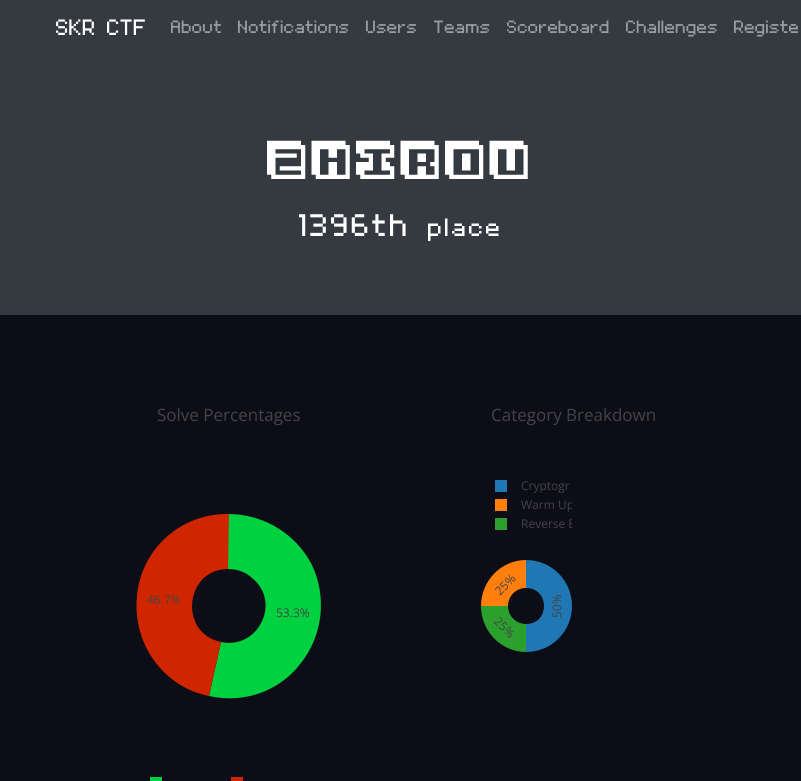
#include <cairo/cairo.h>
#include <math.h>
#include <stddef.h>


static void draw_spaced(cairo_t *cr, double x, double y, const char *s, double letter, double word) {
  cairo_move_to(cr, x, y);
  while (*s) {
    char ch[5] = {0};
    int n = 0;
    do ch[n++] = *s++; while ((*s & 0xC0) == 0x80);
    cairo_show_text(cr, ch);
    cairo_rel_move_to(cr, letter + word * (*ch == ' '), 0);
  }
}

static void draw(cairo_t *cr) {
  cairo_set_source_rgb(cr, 12 / 255.0, 13 / 255.0, 22 / 255.0);
  cairo_paint(cr);
  cairo_set_source_rgb(cr, 52 / 255.0, 58 / 255.0, 64 / 255.0);
  cairo_rectangle(cr, 0, 0, 801, 315);
  cairo_fill(cr);
  cairo_set_source_rgb(cr, 0, 209 / 255.0, 64 / 255.0);
  cairo_rectangle(cr, 150, 777, 12, 4);
  cairo_fill(cr);
  cairo_set_source_rgb(cr, 207 / 255.0, 38 / 255.0, 0);
  cairo_rectangle(cr, 231, 777, 12, 4);
  cairo_fill(cr);
  cairo_set_source_rgb(cr, 0, 209 / 255.0, 64 / 255.0);
  cairo_new_path(cr);
  cairo_move_to(cr, 221, 642);
  cairo_curve_to(cr, 258, 650, 282, 602, 252, 578);
  cairo_curve_to(cr, 246, 572, 237, 569, 228, 569);
  cairo_line_to(cr, 228, 514);
  cairo_curve_to(cr, 264, 514, 296, 534, 312, 565);
  cairo_curve_to(cr, 327, 597, 323, 635, 301, 663);
  cairo_curve_to(cr, 280, 691, 244, 704, 209, 696);
  cairo_close_path(cr);
  cairo_fill(cr);
  cairo_set_source_rgb(cr, 207 / 255.0, 38 / 255.0, 0);
  cairo_new_path(cr);
  cairo_move_to(cr, 228, 569);
  cairo_curve_to(cr, 185, 569, 178, 633, 221, 642);
  cairo_line_to(cr, 209, 696);
  cairo_curve_to(cr, 163, 687, 132, 643, 137, 596);
  cairo_curve_to(cr, 141, 549, 181, 513, 229, 514);
  cairo_close_path(cr);
  cairo_fill(cr);
  cairo_set_source_rgb(cr, 31 / 255.0, 119 / 255.0, 180 / 255.0);
  cairo_rectangle(cr, 495, 480, 12, 12);
  cairo_fill(cr);
  cairo_set_source_rgb(cr, 1, 127 / 255.0, 14 / 255.0);
  cairo_rectangle(cr, 495, 499, 12, 12);
  cairo_fill(cr);
  cairo_set_source_rgb(cr, 44 / 255.0, 160 / 255.0, 44 / 255.0);
  cairo_rectangle(cr, 495, 518, 12, 12);
  cairo_fill(cr);
  cairo_set_source_rgb(cr, 31 / 255.0, 119 / 255.0, 180 / 255.0);
  cairo_new_path(cr);
  cairo_move_to(cr, 526, 624);
  cairo_curve_to(cr, 550, 624, 550, 588, 526, 588);
  cairo_line_to(cr, 526, 560);
  cairo_curve_to(cr, 552, 560, 572, 581, 572, 606);
  cairo_curve_to(cr, 572, 631, 552, 652, 526, 652);
  cairo_close_path(cr);
  cairo_fill(cr);
  cairo_set_source_rgb(cr, 1, 127 / 255.0, 14 / 255.0);
  cairo_new_path(cr);
  cairo_move_to(cr, 526, 588);
  cairo_curve_to(cr, 516, 588, 508, 596, 508, 606);
  cairo_line_to(cr, 481, 606);
  cairo_curve_to(cr, 481, 581, 501, 560, 526, 560);
  cairo_close_path(cr);
  cairo_fill(cr);
  cairo_set_source_rgb(cr, 44 / 255.0, 160 / 255.0, 44 / 255.0);
  cairo_new_path(cr);
  cairo_move_to(cr, 508, 606);
  cairo_curve_to(cr, 508, 616, 516, 624, 526, 624);
  cairo_line_to(cr, 526, 652);
  cairo_curve_to(cr, 501, 652, 481, 631, 481, 606);
  cairo_close_path(cr);
  cairo_fill(cr);
  cairo_select_font_face(cr, "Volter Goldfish", CAIRO_FONT_SLANT_NORMAL, CAIRO_FONT_WEIGHT_NORMAL);
  cairo_set_font_size(cr, 20);
  cairo_set_source_rgb(cr, 1, 1, 1);
  cairo_move_to(cr, 56, 35);
  cairo_show_text(cr, "SKR CTF");
  cairo_set_font_size(cr, 16);
  cairo_set_source_rgb(cr, 154 / 255.0, 157 / 255.0, 160 / 255.0);
  cairo_move_to(cr, 171, 33);
  cairo_show_text(cr, "About");
  cairo_move_to(cr, 238, 33);
  cairo_show_text(cr, "Notifications");
  cairo_move_to(cr, 366, 33);
  cairo_show_text(cr, "Users");
  cairo_move_to(cr, 434, 33);
  cairo_show_text(cr, "Teams");
  cairo_move_to(cr, 507, 33);
  cairo_show_text(cr, "Scoreboard");
  cairo_move_to(cr, 626, 33);
  cairo_show_text(cr, "Challenges");
  cairo_move_to(cr, 734, 33);
  cairo_show_text(cr, "Registe");
  cairo_select_font_face(cr, "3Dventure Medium", CAIRO_FONT_SLANT_NORMAL, CAIRO_FONT_WEIGHT_NORMAL);
  cairo_set_font_size(cr, 68);
  cairo_set_source_rgb(cr, 1, 1, 1);
  draw_spaced(cr, 267, 179, "zhirou", 2, 0);
  cairo_select_font_face(cr, "Volter Goldfish", CAIRO_FONT_SLANT_NORMAL, CAIRO_FONT_WEIGHT_NORMAL);
  cairo_set_font_size(cr, 28);
  draw_spaced(cr, 299, 236, "1396th", 2, 0);
  cairo_set_font_size(cr, 22.5);
  draw_spaced(cr, 428, 236, "place", 2, 0);
  cairo_select_font_face(cr, "Open Sans", CAIRO_FONT_SLANT_NORMAL, CAIRO_FONT_WEIGHT_NORMAL);
  cairo_set_font_size(cr, 17);
  cairo_set_source_rgb(cr, 68 / 255.0, 68 / 255.0, 68 / 255.0);
  cairo_move_to(cr, 157, 421);
  cairo_show_text(cr, "Solve Percentages");
  cairo_set_font_size(cr, 12);
  cairo_move_to(cr, 147, 604);
  cairo_show_text(cr, "46.7%");
  cairo_move_to(cr, 276, 617);
  cairo_show_text(cr, "53.3%");
  cairo_set_font_size(cr, 17);
  cairo_move_to(cr, 491, 421);
  cairo_show_text(cr, "Category Breakdown");
  cairo_set_font_size(cr, 12);
  cairo_move_to(cr, 521, 490);
  cairo_show_text(cr, "Cryptogr");
  cairo_save(cr);
  cairo_rectangle(cr, 481, 471, 91, 67);
  cairo_clip(cr);
  cairo_move_to(cr, 521, 509);
  cairo_show_text(cr, "Warm Up");
  cairo_move_to(cr, 521, 528);
  cairo_show_text(cr, "Reverse E");
  cairo_restore(cr);
  cairo_save(cr);
  cairo_translate(cr, 500, 596);
  cairo_rotate(cr, -45 * M_PI / 180);
  cairo_move_to(cr, 0, 0);
  cairo_show_text(cr, "25%");
  cairo_restore(cr);
  cairo_save(cr);
  cairo_translate(cr, 561, 618);
  cairo_rotate(cr, -90 * M_PI / 180);
  cairo_move_to(cr, 0, 0);
  cairo_show_text(cr, "50%");
  cairo_restore(cr);
  cairo_save(cr);
  cairo_translate(cr, 493, 622);
  cairo_rotate(cr, 45 * M_PI / 180);
  cairo_move_to(cr, 0, 0);
  cairo_show_text(cr, "25%");
  cairo_restore(cr);
}

int main(void) {
  cairo_surface_t *surface = cairo_image_surface_create(CAIRO_FORMAT_RGB24, 801, 781);
  cairo_t *cr = cairo_create(surface);
  cairo_font_options_t *options = cairo_font_options_create();
  cairo_font_options_set_hint_metrics(options, CAIRO_HINT_METRICS_OFF);
  cairo_font_options_set_hint_style(options, CAIRO_HINT_STYLE_NONE);
  cairo_set_font_options(cr, options);
  cairo_set_miter_limit(cr, 4);
  draw(cr);
  cairo_surface_write_to_png(surface, "out.png");
  cairo_font_options_destroy(options);
  cairo_destroy(cr);
  cairo_surface_destroy(surface);
  return 0;
}
